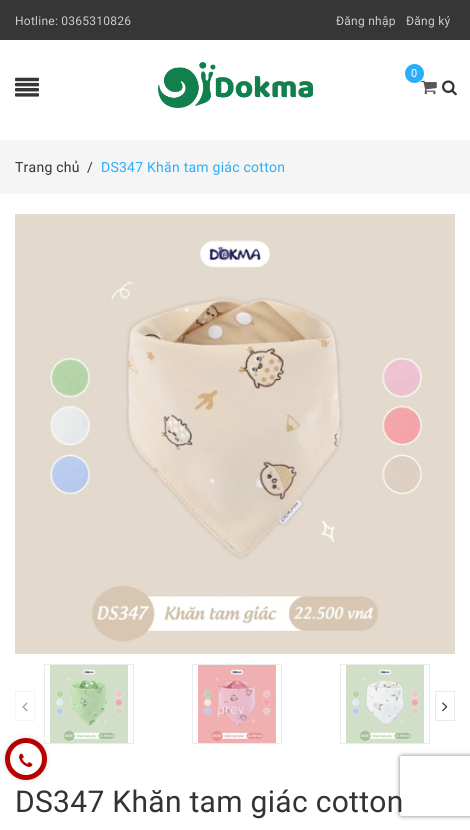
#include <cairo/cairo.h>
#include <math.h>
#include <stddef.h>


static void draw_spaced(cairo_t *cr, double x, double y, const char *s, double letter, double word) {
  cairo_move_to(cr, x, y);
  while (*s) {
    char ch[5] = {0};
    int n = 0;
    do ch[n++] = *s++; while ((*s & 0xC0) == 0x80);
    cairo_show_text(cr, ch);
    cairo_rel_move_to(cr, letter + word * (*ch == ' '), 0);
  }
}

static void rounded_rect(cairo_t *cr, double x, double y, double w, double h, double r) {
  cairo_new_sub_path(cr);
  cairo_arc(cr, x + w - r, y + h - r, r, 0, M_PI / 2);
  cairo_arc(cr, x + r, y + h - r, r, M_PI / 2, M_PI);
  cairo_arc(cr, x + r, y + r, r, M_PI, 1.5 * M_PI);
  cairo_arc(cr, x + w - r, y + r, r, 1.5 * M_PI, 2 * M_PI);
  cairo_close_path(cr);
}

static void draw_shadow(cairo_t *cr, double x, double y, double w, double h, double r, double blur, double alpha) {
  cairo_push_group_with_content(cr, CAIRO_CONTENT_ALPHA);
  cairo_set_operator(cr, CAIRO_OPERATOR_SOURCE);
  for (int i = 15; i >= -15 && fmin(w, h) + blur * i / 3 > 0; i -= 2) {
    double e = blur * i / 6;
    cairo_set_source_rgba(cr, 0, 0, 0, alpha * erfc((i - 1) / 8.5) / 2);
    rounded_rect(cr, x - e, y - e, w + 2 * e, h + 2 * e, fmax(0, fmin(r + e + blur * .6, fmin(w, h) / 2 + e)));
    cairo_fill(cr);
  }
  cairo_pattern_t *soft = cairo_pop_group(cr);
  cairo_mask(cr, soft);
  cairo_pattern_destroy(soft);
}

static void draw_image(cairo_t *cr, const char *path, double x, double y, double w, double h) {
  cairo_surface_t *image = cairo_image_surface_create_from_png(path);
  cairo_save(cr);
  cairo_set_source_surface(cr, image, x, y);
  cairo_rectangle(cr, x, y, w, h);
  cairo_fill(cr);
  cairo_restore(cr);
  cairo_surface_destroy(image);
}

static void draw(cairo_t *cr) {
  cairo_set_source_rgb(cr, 1, 1, 1);
  cairo_paint(cr);
  cairo_set_source_rgb(cr, 54 / 255.0, 54 / 255.0, 54 / 255.0);
  cairo_rectangle(cr, 0, 0, 470, 40);
  cairo_fill(cr);
  draw_image(cr, "images/1.png", 15, 77, 24, 20);
  draw_image(cr, "images/2.png", 158, 62, 155, 46);
  draw_image(cr, "images/3.png", 421, 80, 16, 15);
  cairo_set_source_rgb(cr, 42 / 255.0, 174 / 255.0, 249 / 255.0);
  cairo_arc(cr, 414.5, 73.5, 9.5, 0, 2 * M_PI);
  cairo_fill(cr);
  draw_image(cr, "images/4.png", 442, 80, 15, 16);
  cairo_set_source_rgb(cr, 245 / 255.0, 245 / 255.0, 245 / 255.0);
  cairo_rectangle(cr, 0, 140, 470, 54);
  cairo_fill(cr);
  draw_image(cr, "images/5.png", 15, 214, 440, 440);
  cairo_rectangle(cr, 44.5, 664.5, 89, 79);
  cairo_set_source_rgb(cr, 235 / 255.0, 235 / 255.0, 235 / 255.0);
  cairo_set_line_width(cr, 1);
  cairo_stroke(cr);
  draw_image(cr, "images/6.png", 50, 665, 78, 78);
  cairo_rectangle(cr, 192.5, 664.5, 89, 79);
  cairo_stroke(cr);
  draw_image(cr, "images/7.png", 198, 665, 78, 78);
  cairo_rectangle(cr, 340.5, 664.5, 89, 79);
  cairo_stroke(cr);
  draw_image(cr, "images/8.png", 346, 665, 78, 78);
  cairo_rectangle(cr, 15.5, 691.5, 19, 29);
  cairo_set_source_rgb(cr, 245 / 255.0, 245 / 255.0, 245 / 255.0);
  cairo_stroke(cr);
  draw_image(cr, "images/9.png", 22, 702, 6, 10);
  cairo_rectangle(cr, 435.5, 691.5, 19, 29);
  cairo_set_source_rgb(cr, 235 / 255.0, 235 / 255.0, 235 / 255.0);
  cairo_stroke(cr);
  draw_image(cr, "images/10.png", 442, 702, 6, 10);
  cairo_set_source_rgb(cr, 221 / 255.0, 221 / 255.0, 221 / 255.0);
  draw_shadow(cr, 5, 738, 42, 42, 21, 2.5, 1);
  cairo_set_source_rgb(cr, 183 / 255.0, 1 / 255.0, 0);
  cairo_arc(cr, 26, 759, 21, 0, 2 * M_PI);
  cairo_fill(cr);
  cairo_set_source_rgb(cr, 1, 1, 1);
  cairo_arc(cr, 26, 759, 16, 0, 2 * M_PI);
  cairo_fill(cr);
  draw_image(cr, "images/11.png", 19, 753, 14, 14);
  cairo_save(cr);
  cairo_set_fill_rule(cr, CAIRO_FILL_RULE_EVEN_ODD);
  cairo_new_path(cr);
  cairo_move_to(cr, 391, 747);
  cairo_line_to(cr, 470, 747);
  cairo_line_to(cr, 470, 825);
  cairo_line_to(cr, 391, 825);
  cairo_close_path(cr);
  cairo_move_to(cr, 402, 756);
  cairo_line_to(cr, 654, 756);
  cairo_curve_to(cr, 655, 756, 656, 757, 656, 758);
  cairo_line_to(cr, 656, 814);
  cairo_curve_to(cr, 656, 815, 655, 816, 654, 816);
  cairo_line_to(cr, 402, 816);
  cairo_curve_to(cr, 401, 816, 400, 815, 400, 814);
  cairo_line_to(cr, 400, 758);
  cairo_curve_to(cr, 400, 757, 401, 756, 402, 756);
  cairo_close_path(cr);
  cairo_clip(cr);
  cairo_set_source_rgb(cr, 128 / 255.0, 128 / 255.0, 128 / 255.0);
  draw_shadow(cr, 400, 756, 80, 60, 2, 2.5, 1);
  cairo_restore(cr);
  cairo_select_font_face(cr, "Roboto", CAIRO_FONT_SLANT_NORMAL, CAIRO_FONT_WEIGHT_NORMAL);
  cairo_set_font_size(cr, 12);
  cairo_set_source_rgb(cr, 204 / 255.0, 204 / 255.0, 204 / 255.0);
  draw_spaced(cr, 15, 25, "Hotline: 0365310826", 0.25, 0);
  draw_spaced(cr, 336, 25, "Đăng nhập", 0.25, 0);
  draw_spaced(cr, 406, 25, "Đăng ký", 0.25, 0);
  cairo_set_font_size(cr, 11);
  cairo_set_source_rgb(cr, 1, 1, 1);
  draw_spaced(cr, 411, 77, "0", 0.25, 0);
  cairo_set_font_size(cr, 14);
  cairo_set_source_rgb(cr, 51 / 255.0, 51 / 255.0, 51 / 255.0);
  draw_spaced(cr, 15, 172, "Trang chủ", 0.25, 0);
  draw_spaced(cr, 87, 172, "/", 0.25, 0);
  cairo_set_source_rgb(cr, 42 / 255.0, 174 / 255.0, 249 / 255.0);
  draw_spaced(cr, 101, 172, "DS347 Khăn tam giác cotton", 0.25, 0);
  cairo_set_source_rgb(cr, 242 / 255.0, 218 / 255.0, 224 / 255.0);
  draw_spaced(cr, 217, 714, "prev", 0.25, 0);
  cairo_set_font_size(cr, 30);
  cairo_set_source_rgb(cr, 51 / 255.0, 51 / 255.0, 51 / 255.0);
  draw_spaced(cr, 15, 812, "DS347 Khăn tam giác cotton", 0.3, 0);
}

int main(void) {
  cairo_surface_t *surface = cairo_image_surface_create(CAIRO_FORMAT_RGB24, 470, 830);
  cairo_t *cr = cairo_create(surface);
  cairo_font_options_t *options = cairo_font_options_create();
  cairo_font_options_set_hint_metrics(options, CAIRO_HINT_METRICS_OFF);
  cairo_font_options_set_hint_style(options, CAIRO_HINT_STYLE_NONE);
  cairo_set_font_options(cr, options);
  cairo_set_miter_limit(cr, 4);
  draw(cr);
  cairo_surface_write_to_png(surface, "out.png");
  cairo_font_options_destroy(options);
  cairo_destroy(cr);
  cairo_surface_destroy(surface);
  return 0;
}
